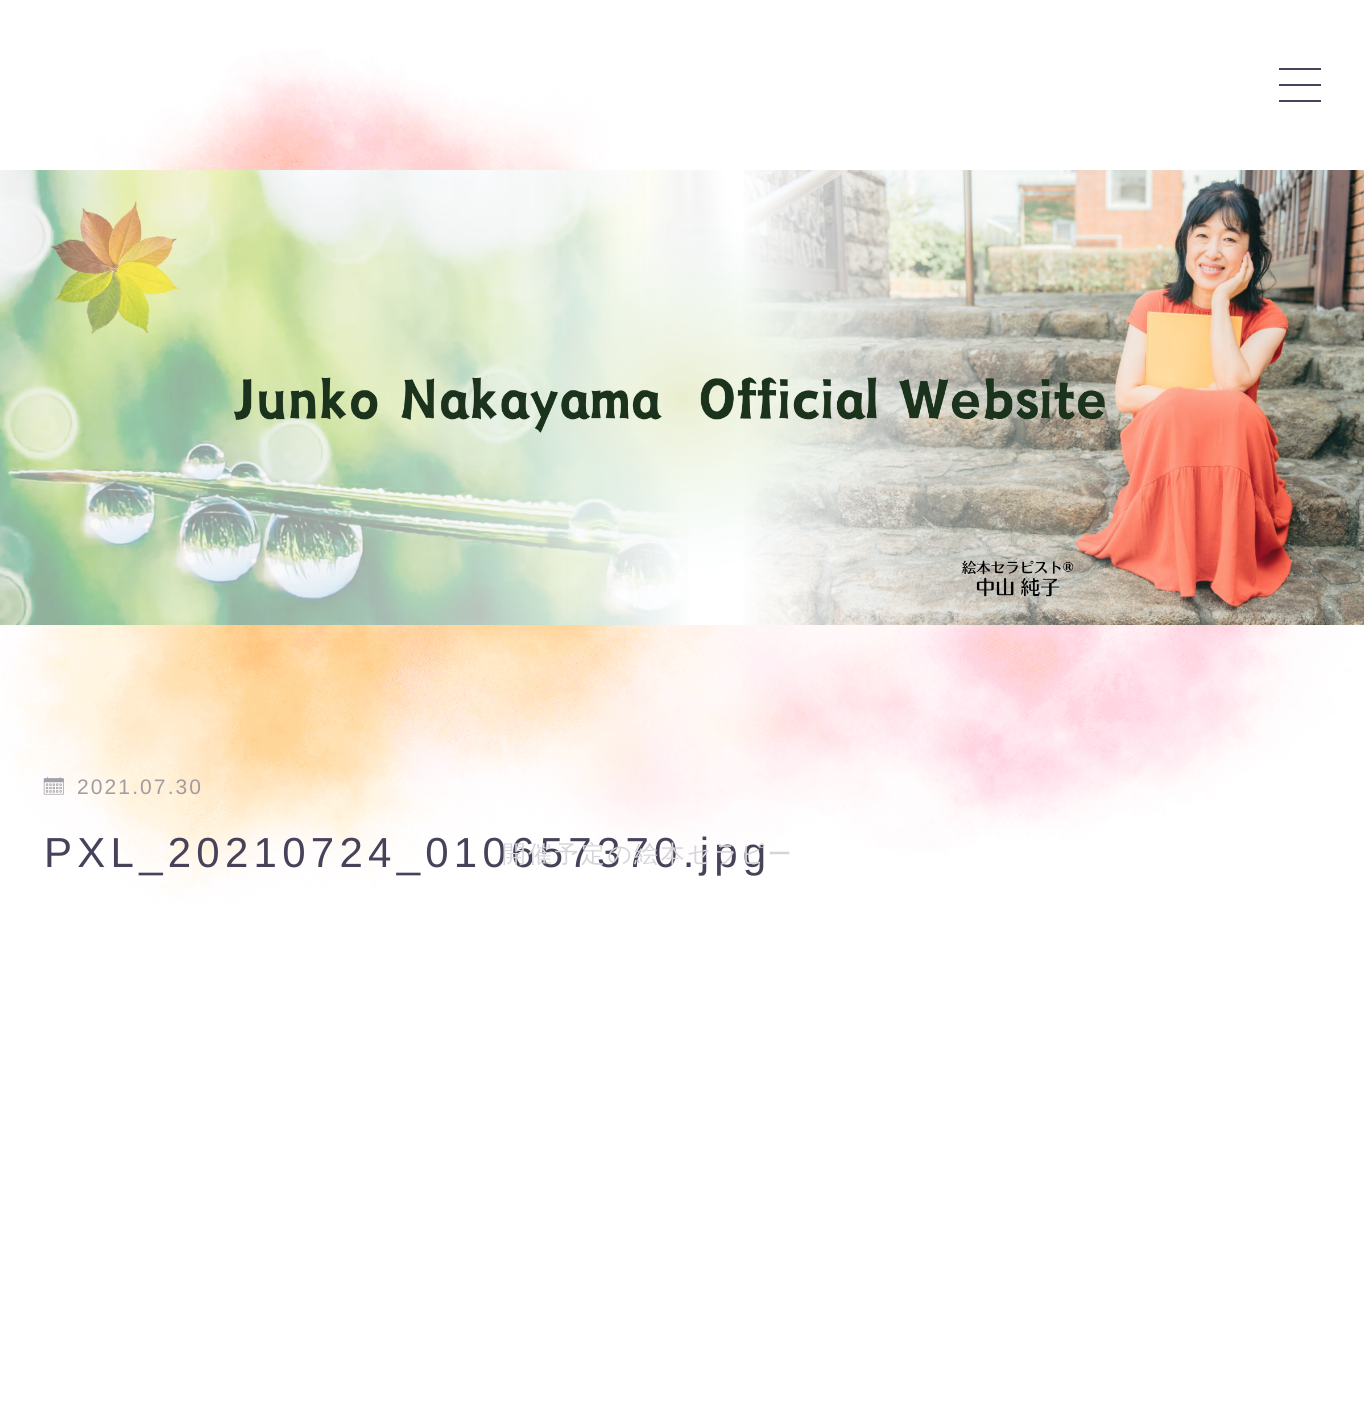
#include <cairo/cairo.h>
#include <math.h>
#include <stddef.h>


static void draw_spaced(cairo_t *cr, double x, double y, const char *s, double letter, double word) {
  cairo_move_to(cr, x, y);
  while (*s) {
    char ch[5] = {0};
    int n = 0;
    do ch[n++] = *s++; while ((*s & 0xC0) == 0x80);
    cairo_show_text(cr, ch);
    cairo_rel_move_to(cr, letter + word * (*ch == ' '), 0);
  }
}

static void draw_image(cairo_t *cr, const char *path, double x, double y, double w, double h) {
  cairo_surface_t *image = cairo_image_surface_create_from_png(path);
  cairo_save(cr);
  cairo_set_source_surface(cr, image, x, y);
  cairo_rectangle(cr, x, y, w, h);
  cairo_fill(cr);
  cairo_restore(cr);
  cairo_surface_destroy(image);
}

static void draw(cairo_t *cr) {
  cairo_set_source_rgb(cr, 1, 1, 1);
  cairo_paint(cr);
  draw_image(cr, "images/1.png", 1, 50, 1353, 852);
  draw_image(cr, "images/2.png", 0, 170, 1364, 455);
  draw_image(cr, "images/3.png", 43, 776, 21, 19);
  cairo_set_source_rgb(cr, 71 / 255.0, 66 / 255.0, 89 / 255.0);
  cairo_rectangle(cr, 1279, 68, 42, 2);
  cairo_fill(cr);
  cairo_rectangle(cr, 1279, 84, 42, 2);
  cairo_fill(cr);
  cairo_rectangle(cr, 1279, 100, 42, 2);
  cairo_fill(cr);
  cairo_select_font_face(cr, "Liberation Sans", CAIRO_FONT_SLANT_NORMAL, CAIRO_FONT_WEIGHT_NORMAL);
  cairo_set_font_size(cr, 21);
  cairo_set_source_rgb(cr, 163 / 255.0, 155 / 255.0, 157 / 255.0);
  draw_spaced(cr, 77, 794, "2021.07.30", 2.1, 0);
  cairo_set_font_size(cr, 42);
  cairo_set_source_rgb(cr, 71 / 255.0, 66 / 255.0, 89 / 255.0);
  draw_spaced(cr, 44, 867, "PXL_20210724_010657370.jpg", 5.25, 0);
  cairo_select_font_face(cr, "WenQuanYi Zen Hei Medium", CAIRO_FONT_SLANT_NORMAL, CAIRO_FONT_WEIGHT_NORMAL);
  cairo_set_font_size(cr, 23.75);
  cairo_set_source_rgb(cr, 214 / 255.0, 212 / 255.0, 217 / 255.0);
  draw_spaced(cr, 502, 862, "開催予定の絵本セラピー", 2.6, 0);
}

int main(void) {
  cairo_surface_t *surface = cairo_image_surface_create(CAIRO_FORMAT_RGB24, 1364, 1407);
  cairo_t *cr = cairo_create(surface);
  cairo_font_options_t *options = cairo_font_options_create();
  cairo_font_options_set_hint_metrics(options, CAIRO_HINT_METRICS_OFF);
  cairo_font_options_set_hint_style(options, CAIRO_HINT_STYLE_NONE);
  cairo_set_font_options(cr, options);
  cairo_set_miter_limit(cr, 4);
  draw(cr);
  cairo_surface_write_to_png(surface, "out.png");
  cairo_font_options_destroy(options);
  cairo_destroy(cr);
  cairo_surface_destroy(surface);
  return 0;
}
